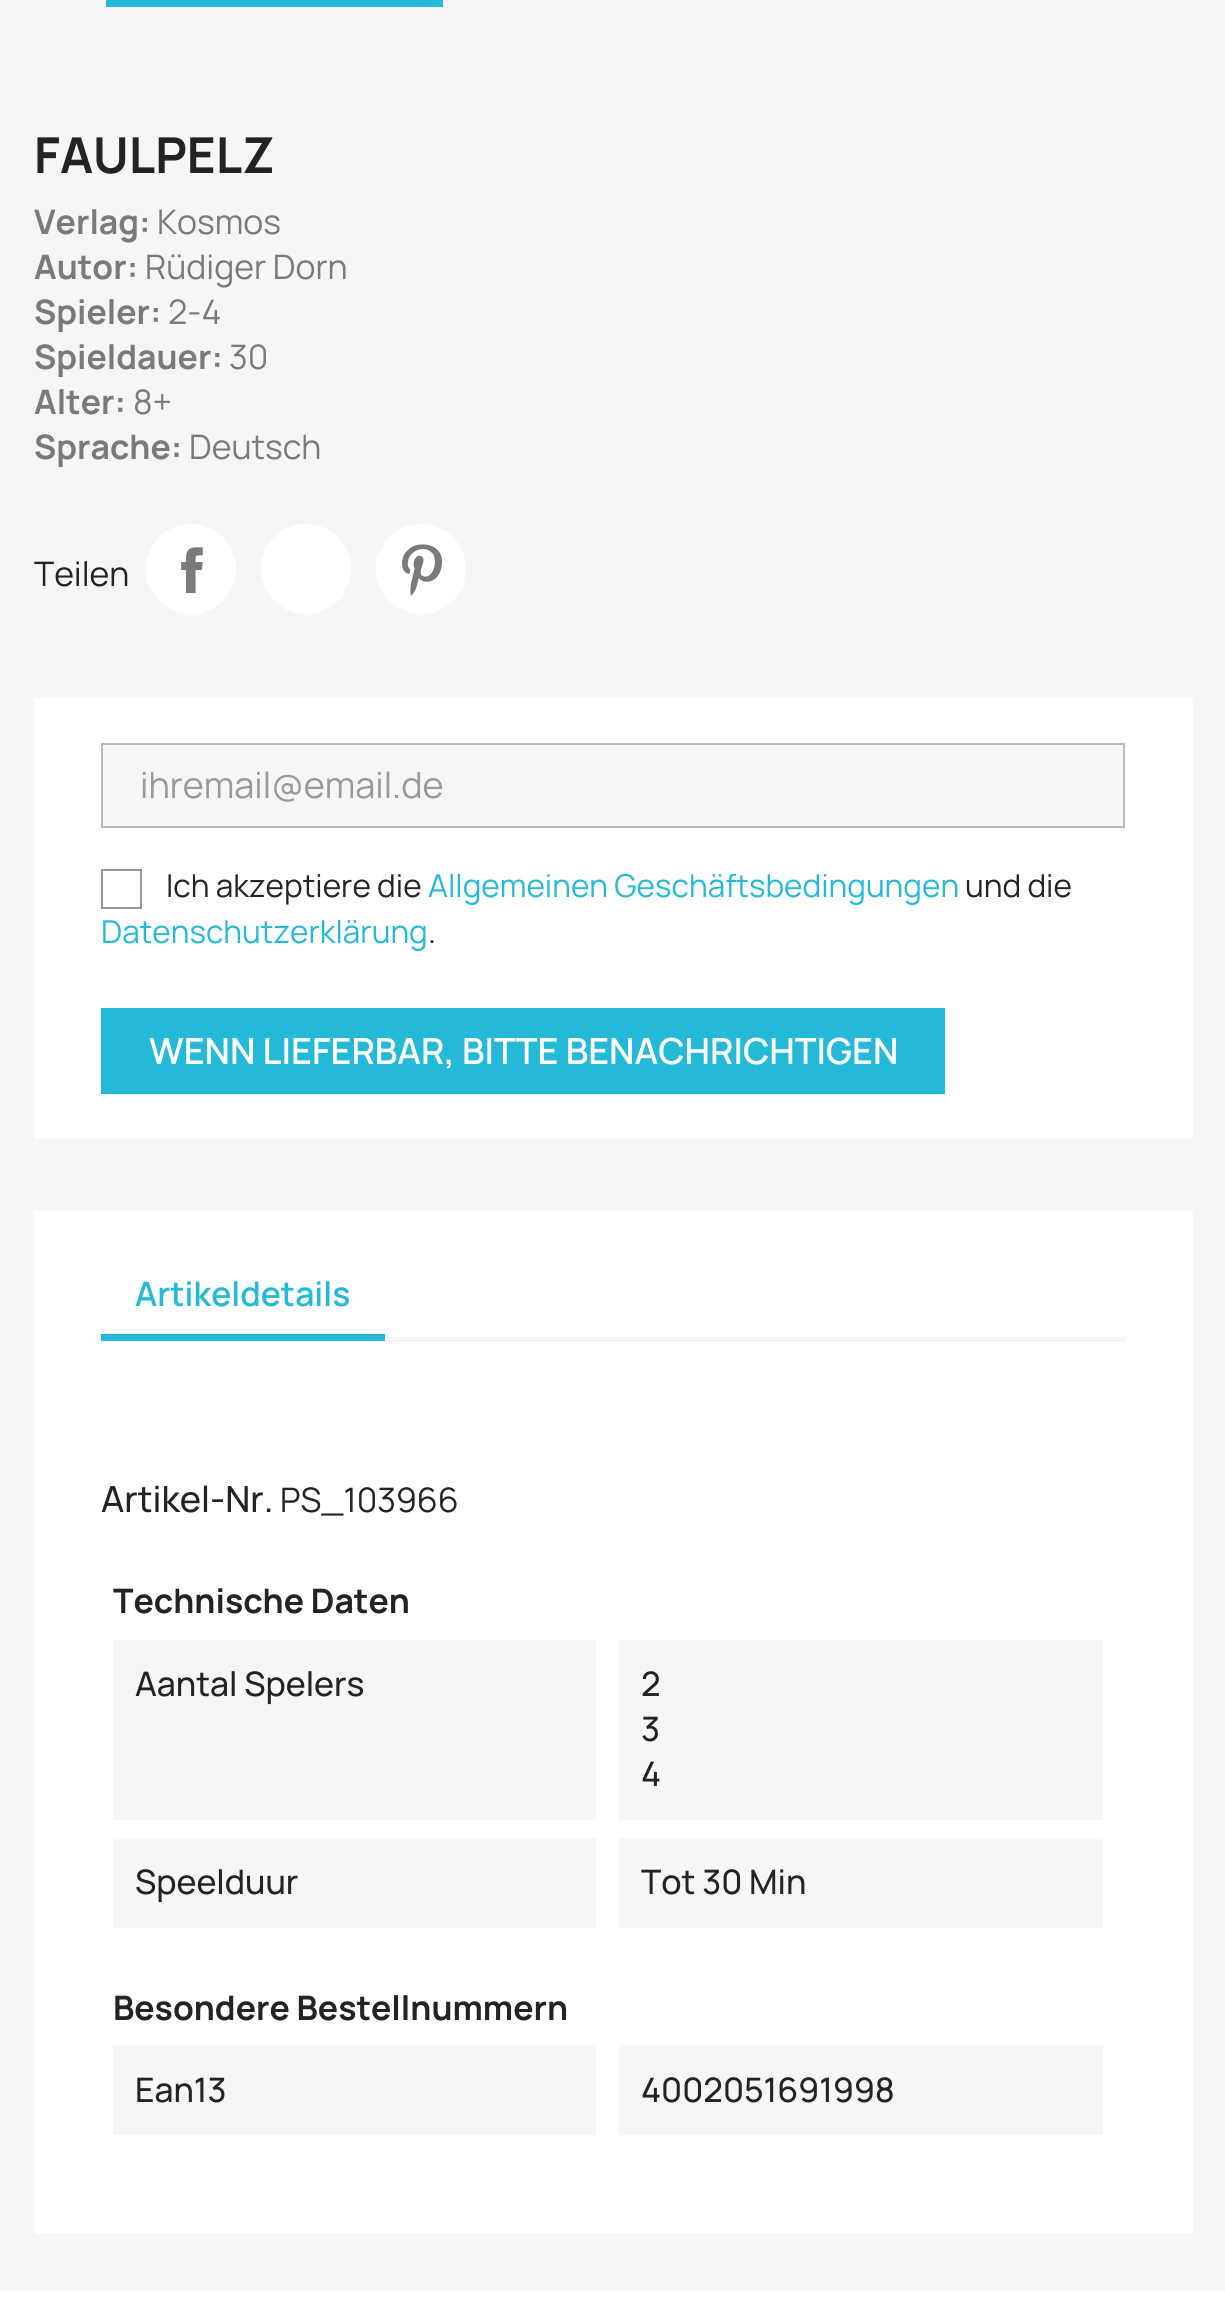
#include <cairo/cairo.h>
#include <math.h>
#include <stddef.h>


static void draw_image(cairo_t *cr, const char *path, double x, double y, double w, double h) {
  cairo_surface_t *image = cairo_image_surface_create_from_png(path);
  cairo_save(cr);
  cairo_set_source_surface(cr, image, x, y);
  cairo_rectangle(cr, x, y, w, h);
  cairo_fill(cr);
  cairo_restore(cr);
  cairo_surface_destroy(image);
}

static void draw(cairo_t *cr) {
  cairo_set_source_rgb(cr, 1, 1, 1);
  cairo_paint(cr);
  cairo_set_source_rgb(cr, 246 / 255.0, 246 / 255.0, 246 / 255.0);
  cairo_rectangle(cr, 0, 0, 1225, 2291);
  cairo_fill(cr);
  cairo_set_source_rgb(cr, 36 / 255.0, 185 / 255.0, 215 / 255.0);
  cairo_rectangle(cr, 106, 0, 337, 7);
  cairo_fill(cr);
  cairo_set_source_rgb(cr, 1, 1, 1);
  cairo_arc(cr, 191, 569, 45, 0, 2 * M_PI);
  cairo_fill(cr);
  draw_image(cr, "images/1.png", 181, 547, 22, 47);
  cairo_arc(cr, 306, 569, 45, 0, 2 * M_PI);
  cairo_fill(cr);
  cairo_arc(cr, 421, 569, 45, 0, 2 * M_PI);
  cairo_fill(cr);
  draw_image(cr, "images/2.png", 402, 544, 41, 52);
  cairo_rectangle(cr, 34, 698, 1159, 441);
  cairo_fill(cr);
  cairo_set_source_rgb(cr, 246 / 255.0, 246 / 255.0, 246 / 255.0);
  cairo_rectangle(cr, 102, 744, 1022, 83);
  cairo_fill_preserve(cr);
  cairo_set_source_rgb(cr, 185 / 255.0, 185 / 255.0, 185 / 255.0);
  cairo_stroke(cr);
  cairo_rectangle(cr, 102, 870, 39, 38);
  cairo_set_source_rgb(cr, 151 / 255.0, 151 / 255.0, 151 / 255.0);
  cairo_stroke(cr);
  cairo_set_source_rgb(cr, 36 / 255.0, 185 / 255.0, 215 / 255.0);
  cairo_rectangle(cr, 101, 1008, 844, 86);
  cairo_fill(cr);
  cairo_set_source_rgb(cr, 1, 1, 1);
  cairo_rectangle(cr, 34, 1211, 1159, 1023);
  cairo_fill(cr);
  cairo_set_source_rgb(cr, 246 / 255.0, 246 / 255.0, 246 / 255.0);
  cairo_rectangle(cr, 101, 1337, 1024, 5);
  cairo_fill(cr);
  cairo_set_source_rgb(cr, 36 / 255.0, 185 / 255.0, 215 / 255.0);
  cairo_rectangle(cr, 101, 1334, 284, 7);
  cairo_fill(cr);
  cairo_set_source_rgb(cr, 246 / 255.0, 246 / 255.0, 246 / 255.0);
  cairo_rectangle(cr, 113, 1640, 483, 180);
  cairo_fill(cr);
  cairo_rectangle(cr, 619, 1640, 484, 180);
  cairo_fill(cr);
  cairo_rectangle(cr, 113, 1838, 483, 90);
  cairo_fill(cr);
  cairo_rectangle(cr, 619, 1838, 484, 90);
  cairo_fill(cr);
  cairo_rectangle(cr, 113, 2045, 483, 90);
  cairo_fill(cr);
  cairo_rectangle(cr, 619, 2045, 484, 90);
  cairo_fill(cr);
  cairo_select_font_face(cr, "Manrope", CAIRO_FONT_SLANT_NORMAL, CAIRO_FONT_WEIGHT_BOLD);
  cairo_set_font_size(cr, 49.5);
  cairo_set_source_rgb(cr, 35 / 255.0, 35 / 255.0, 35 / 255.0);
  cairo_move_to(cr, 34, 173);
  cairo_show_text(cr, "FAULPELZ");
  cairo_set_font_size(cr, 33.75);
  cairo_set_source_rgb(cr, 122 / 255.0, 122 / 255.0, 122 / 255.0);
  cairo_move_to(cr, 34, 234);
  cairo_show_text(cr, "Verlag:");
  cairo_select_font_face(cr, "Manrope", CAIRO_FONT_SLANT_NORMAL, CAIRO_FONT_WEIGHT_NORMAL);
  cairo_move_to(cr, 157, 234);
  cairo_show_text(cr, "Kosmos");
  cairo_select_font_face(cr, "Manrope", CAIRO_FONT_SLANT_NORMAL, CAIRO_FONT_WEIGHT_BOLD);
  cairo_move_to(cr, 34, 279);
  cairo_show_text(cr, "Autor:");
  cairo_select_font_face(cr, "Manrope", CAIRO_FONT_SLANT_NORMAL, CAIRO_FONT_WEIGHT_NORMAL);
  cairo_move_to(cr, 145, 279);
  cairo_show_text(cr, "Rüdiger Dorn");
  cairo_select_font_face(cr, "Manrope", CAIRO_FONT_SLANT_NORMAL, CAIRO_FONT_WEIGHT_BOLD);
  cairo_move_to(cr, 34, 324);
  cairo_show_text(cr, "Spieler:");
  cairo_select_font_face(cr, "Manrope", CAIRO_FONT_SLANT_NORMAL, CAIRO_FONT_WEIGHT_NORMAL);
  cairo_move_to(cr, 168, 324);
  cairo_show_text(cr, "2-4");
  cairo_select_font_face(cr, "Manrope", CAIRO_FONT_SLANT_NORMAL, CAIRO_FONT_WEIGHT_BOLD);
  cairo_move_to(cr, 34, 369);
  cairo_show_text(cr, "Spieldauer:");
  cairo_select_font_face(cr, "Manrope", CAIRO_FONT_SLANT_NORMAL, CAIRO_FONT_WEIGHT_NORMAL);
  cairo_move_to(cr, 229, 369);
  cairo_show_text(cr, "30");
  cairo_select_font_face(cr, "Manrope", CAIRO_FONT_SLANT_NORMAL, CAIRO_FONT_WEIGHT_BOLD);
  cairo_move_to(cr, 34, 414);
  cairo_show_text(cr, "Alter:");
  cairo_select_font_face(cr, "Manrope", CAIRO_FONT_SLANT_NORMAL, CAIRO_FONT_WEIGHT_NORMAL);
  cairo_move_to(cr, 133, 414);
  cairo_show_text(cr, "8+");
  cairo_select_font_face(cr, "Manrope", CAIRO_FONT_SLANT_NORMAL, CAIRO_FONT_WEIGHT_BOLD);
  cairo_move_to(cr, 34, 459);
  cairo_show_text(cr, "Sprache:");
  cairo_select_font_face(cr, "Manrope", CAIRO_FONT_SLANT_NORMAL, CAIRO_FONT_WEIGHT_NORMAL);
  cairo_move_to(cr, 189, 459);
  cairo_show_text(cr, "Deutsch");
  cairo_set_source_rgb(cr, 35 / 255.0, 35 / 255.0, 35 / 255.0);
  cairo_move_to(cr, 34, 586);
  cairo_show_text(cr, "Teilen");
  cairo_set_font_size(cr, 36);
  cairo_set_source_rgb(cr, 153 / 255.0, 153 / 255.0, 153 / 255.0);
  cairo_move_to(cr, 140, 798);
  cairo_show_text(cr, "ihremail@email.de");
  cairo_set_font_size(cr, 31.5);
  cairo_set_source_rgb(cr, 35 / 255.0, 35 / 255.0, 35 / 255.0);
  cairo_move_to(cr, 166, 897);
  cairo_show_text(cr, "Ich akzeptiere die");
  cairo_set_source_rgb(cr, 36 / 255.0, 185 / 255.0, 215 / 255.0);
  cairo_move_to(cr, 428, 897);
  cairo_show_text(cr, "Allgemeinen Geschäftsbedingungen");
  cairo_set_source_rgb(cr, 35 / 255.0, 35 / 255.0, 35 / 255.0);
  cairo_move_to(cr, 965, 897);
  cairo_show_text(cr, "und die");
  cairo_set_source_rgb(cr, 36 / 255.0, 185 / 255.0, 215 / 255.0);
  cairo_move_to(cr, 101, 943);
  cairo_show_text(cr, "Datenschutzerklärung");
  cairo_set_source_rgb(cr, 35 / 255.0, 35 / 255.0, 35 / 255.0);
  cairo_move_to(cr, 428, 943);
  cairo_show_text(cr, ".");
  cairo_select_font_face(cr, "Manrope SemiBold", CAIRO_FONT_SLANT_NORMAL, CAIRO_FONT_WEIGHT_NORMAL);
  cairo_set_font_size(cr, 36);
  cairo_set_source_rgb(cr, 1, 1, 1);
  cairo_move_to(cr, 149, 1064);
  cairo_show_text(cr, "WENN LIEFERBAR, BITTE BENACHRICHTIGEN");
  cairo_set_font_size(cr, 33.75);
  cairo_set_source_rgb(cr, 36 / 255.0, 185 / 255.0, 215 / 255.0);
  cairo_move_to(cr, 135, 1306);
  cairo_show_text(cr, "Artikeldetails");
  cairo_select_font_face(cr, "Manrope Medium", CAIRO_FONT_SLANT_NORMAL, CAIRO_FONT_WEIGHT_NORMAL);
  cairo_set_font_size(cr, 36);
  cairo_set_source_rgb(cr, 35 / 255.0, 35 / 255.0, 35 / 255.0);
  cairo_move_to(cr, 101, 1512);
  cairo_show_text(cr, "Artikel-Nr.");
  cairo_select_font_face(cr, "Manrope", CAIRO_FONT_SLANT_NORMAL, CAIRO_FONT_WEIGHT_NORMAL);
  cairo_set_font_size(cr, 33.75);
  cairo_move_to(cr, 280, 1512);
  cairo_show_text(cr, "PS_103966");
  cairo_select_font_face(cr, "Manrope", CAIRO_FONT_SLANT_NORMAL, CAIRO_FONT_WEIGHT_BOLD);
  cairo_move_to(cr, 113, 1613);
  cairo_show_text(cr, "Technische Daten");
  cairo_select_font_face(cr, "Manrope Medium", CAIRO_FONT_SLANT_NORMAL, CAIRO_FONT_WEIGHT_NORMAL);
  cairo_move_to(cr, 135, 1696);
  cairo_show_text(cr, "Aantal Spelers");
  cairo_move_to(cr, 641, 1696);
  cairo_show_text(cr, "2");
  cairo_move_to(cr, 641, 1741);
  cairo_show_text(cr, "3");
  cairo_move_to(cr, 641, 1786);
  cairo_show_text(cr, "4");
  cairo_move_to(cr, 135, 1894);
  cairo_show_text(cr, "Speelduur");
  cairo_move_to(cr, 641, 1894);
  cairo_show_text(cr, "Tot 30 Min");
  cairo_select_font_face(cr, "Manrope", CAIRO_FONT_SLANT_NORMAL, CAIRO_FONT_WEIGHT_BOLD);
  cairo_move_to(cr, 113, 2020);
  cairo_show_text(cr, "Besondere Bestellnummern");
  cairo_select_font_face(cr, "Manrope Medium", CAIRO_FONT_SLANT_NORMAL, CAIRO_FONT_WEIGHT_NORMAL);
  cairo_move_to(cr, 135, 2102);
  cairo_show_text(cr, "Ean13");
  cairo_move_to(cr, 641, 2102);
  cairo_show_text(cr, "4002051691998");
}

int main(void) {
  cairo_surface_t *surface = cairo_image_surface_create(CAIRO_FORMAT_RGB24, 1225, 2308);
  cairo_t *cr = cairo_create(surface);
  cairo_font_options_t *options = cairo_font_options_create();
  cairo_font_options_set_hint_metrics(options, CAIRO_HINT_METRICS_OFF);
  cairo_font_options_set_hint_style(options, CAIRO_HINT_STYLE_NONE);
  cairo_set_font_options(cr, options);
  cairo_set_miter_limit(cr, 4);
  draw(cr);
  cairo_surface_write_to_png(surface, "out.png");
  cairo_font_options_destroy(options);
  cairo_destroy(cr);
  cairo_surface_destroy(surface);
  return 0;
}
